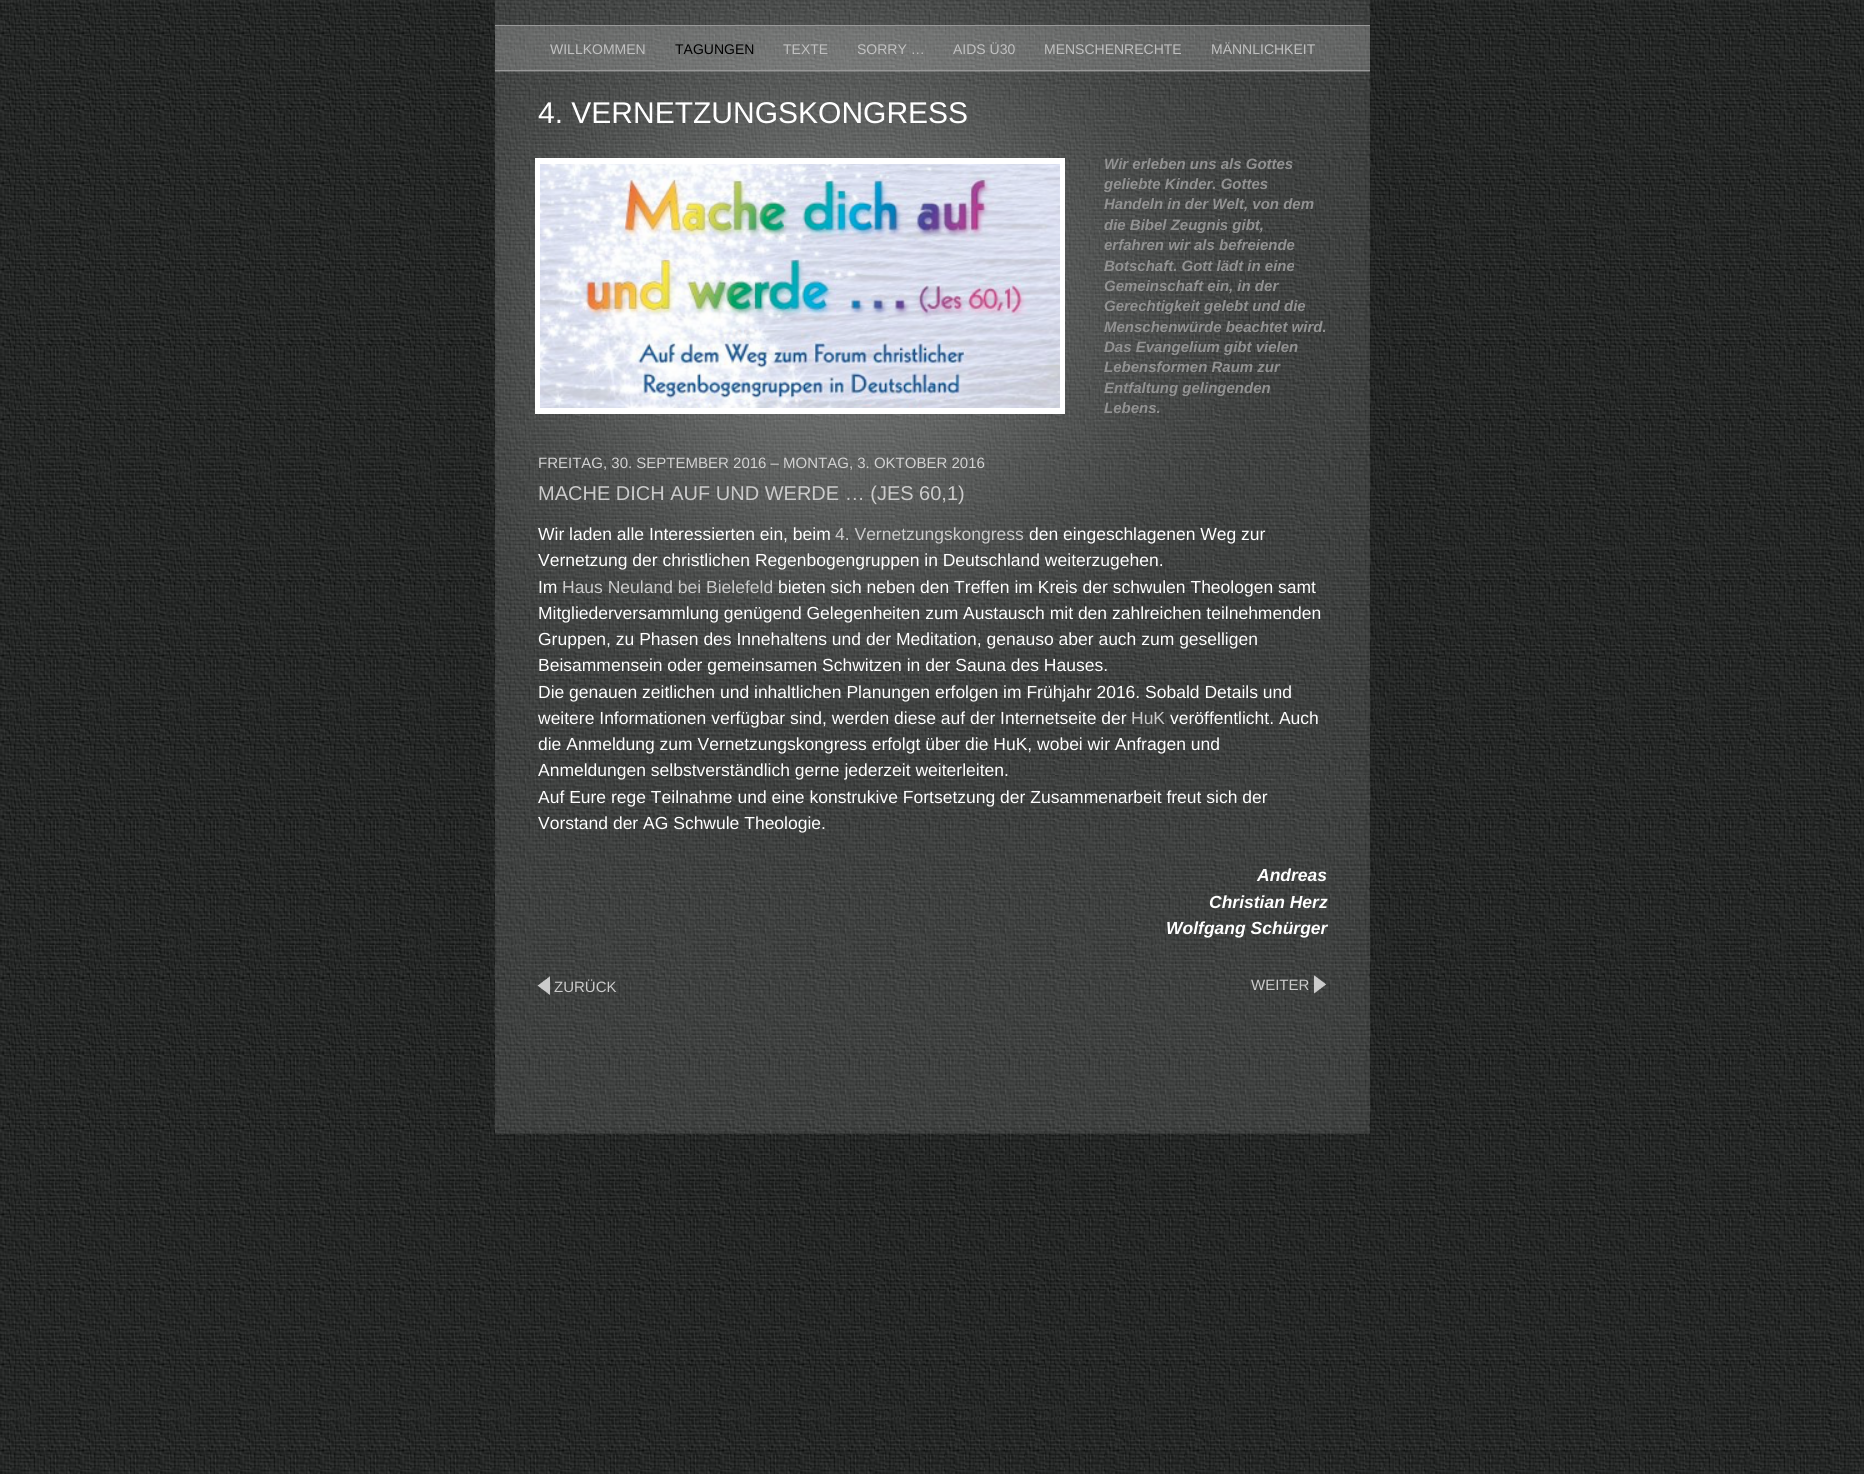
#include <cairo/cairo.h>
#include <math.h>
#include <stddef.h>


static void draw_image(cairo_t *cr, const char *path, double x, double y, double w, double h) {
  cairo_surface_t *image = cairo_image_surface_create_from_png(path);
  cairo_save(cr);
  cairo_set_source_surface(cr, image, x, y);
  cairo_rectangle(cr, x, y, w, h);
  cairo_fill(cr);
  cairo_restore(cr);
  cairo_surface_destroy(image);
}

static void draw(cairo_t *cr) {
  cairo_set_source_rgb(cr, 1, 1, 1);
  cairo_paint(cr);
  draw_image(cr, "images/1.png", 0, 0, 1864, 1474);
  draw_image(cr, "images/2.png", 495, 775, 875, 359);
  draw_image(cr, "images/3.png", 495, 0, 875, 775);
  cairo_set_source_rgba(cr, 1, 1, 1, 0.2);
  cairo_rectangle(cr, 495, 26, 875, 46);
  cairo_fill(cr);
  cairo_set_source_rgb(cr, 153 / 255.0, 153 / 255.0, 153 / 255.0);
  cairo_rectangle(cr, 495, 25, 875, 1);
  cairo_fill(cr);
  cairo_rectangle(cr, 495, 70, 875, 1);
  cairo_fill(cr);
  cairo_set_source_rgb(cr, 1, 1, 1);
  cairo_rectangle(cr, 535, 158, 5, 256);
  cairo_fill(cr);
  cairo_rectangle(cr, 540, 158, 525, 6);
  cairo_fill(cr);
  draw_image(cr, "images/4.png", 540, 164, 520, 244);
  cairo_rectangle(cr, 1060, 164, 5, 250);
  cairo_fill(cr);
  cairo_rectangle(cr, 540, 408, 520, 6);
  cairo_fill(cr);
  draw_image(cr, "images/5.png", 537, 976, 13, 19);
  draw_image(cr, "images/6.png", 1313, 975, 14, 19);
  cairo_select_font_face(cr, "Liberation Sans", CAIRO_FONT_SLANT_NORMAL, CAIRO_FONT_WEIGHT_NORMAL);
  cairo_set_font_size(cr, 14);
  cairo_set_source_rgb(cr, 193 / 255.0, 193 / 255.0, 193 / 255.0);
  cairo_move_to(cr, 550, 54);
  cairo_show_text(cr, "WILLKOMMEN");
  cairo_set_source_rgb(cr, 0, 0, 0);
  cairo_move_to(cr, 675, 54);
  cairo_show_text(cr, "TAGUNGEN");
  cairo_set_source_rgb(cr, 193 / 255.0, 193 / 255.0, 193 / 255.0);
  cairo_move_to(cr, 783, 54);
  cairo_show_text(cr, "TEXTE");
  cairo_move_to(cr, 857, 54);
  cairo_show_text(cr, "SORRY …");
  cairo_move_to(cr, 953, 54);
  cairo_show_text(cr, "AIDS Ü30");
  cairo_move_to(cr, 1044, 54);
  cairo_show_text(cr, "MENSCHENRECHTE");
  cairo_move_to(cr, 1211, 54);
  cairo_show_text(cr, "MÄNNLICHKEIT");
  cairo_set_font_size(cr, 30);
  cairo_set_source_rgb(cr, 1, 1, 1);
  cairo_move_to(cr, 538, 123);
  cairo_show_text(cr, "4. VERNETZUNGSKONGRESS");
  cairo_select_font_face(cr, "Liberation Sans", CAIRO_FONT_SLANT_ITALIC, CAIRO_FONT_WEIGHT_BOLD);
  cairo_set_font_size(cr, 15);
  cairo_set_source_rgb(cr, 146 / 255.0, 146 / 255.0, 146 / 255.0);
  cairo_move_to(cr, 1104, 169);
  cairo_show_text(cr, "Wir erleben uns als Gottes");
  cairo_move_to(cr, 1104, 189);
  cairo_show_text(cr, "geliebte Kinder. Gottes");
  cairo_move_to(cr, 1104, 209);
  cairo_show_text(cr, "Handeln in der Welt, von dem");
  cairo_move_to(cr, 1104, 230);
  cairo_show_text(cr, "die Bibel Zeugnis gibt,");
  cairo_move_to(cr, 1104, 250);
  cairo_show_text(cr, "erfahren wir als befreiende");
  cairo_move_to(cr, 1104, 271);
  cairo_show_text(cr, "Botschaft. Gott lädt in eine");
  cairo_move_to(cr, 1104, 291);
  cairo_show_text(cr, "Gemeinschaft ein, in der");
  cairo_move_to(cr, 1104, 311);
  cairo_show_text(cr, "Gerechtigkeit gelebt und die");
  cairo_move_to(cr, 1104, 332);
  cairo_show_text(cr, "Menschenwürde beachtet wird.");
  cairo_move_to(cr, 1104, 352);
  cairo_show_text(cr, "Das Evangelium gibt vielen");
  cairo_move_to(cr, 1104, 372);
  cairo_show_text(cr, "Lebensformen Raum zur");
  cairo_move_to(cr, 1104, 393);
  cairo_show_text(cr, "Entfaltung gelingenden");
  cairo_move_to(cr, 1104, 413);
  cairo_show_text(cr, "Lebens.");
  cairo_select_font_face(cr, "Liberation Sans", CAIRO_FONT_SLANT_NORMAL, CAIRO_FONT_WEIGHT_NORMAL);
  cairo_set_source_rgb(cr, 210 / 255.0, 210 / 255.0, 210 / 255.0);
  cairo_move_to(cr, 538, 468);
  cairo_show_text(cr, "FREITAG, 30. SEPTEMBER 2016 – MONTAG, 3. OKTOBER 2016");
  cairo_set_font_size(cr, 20);
  cairo_set_source_rgb(cr, 203 / 255.0, 203 / 255.0, 203 / 255.0);
  cairo_move_to(cr, 538, 500);
  cairo_show_text(cr, "MACHE DICH AUF UND WERDE … (JES 60,1)");
  cairo_set_font_size(cr, 17.5);
  cairo_set_source_rgb(cr, 1, 1, 1);
  cairo_move_to(cr, 538, 540);
  cairo_show_text(cr, "Wir laden alle Interessierten ein, beim");
  cairo_set_source_rgb(cr, 203 / 255.0, 203 / 255.0, 203 / 255.0);
  cairo_move_to(cr, 835, 540);
  cairo_show_text(cr, "4. Vernetzungskongress");
  cairo_set_source_rgb(cr, 1, 1, 1);
  cairo_move_to(cr, 1029, 540);
  cairo_show_text(cr, "den eingeschlagenen Weg zur");
  cairo_move_to(cr, 538, 566);
  cairo_show_text(cr, "Vernetzung der christlichen Regenbogengruppen in Deutschland weiterzugehen.");
  cairo_move_to(cr, 538, 593);
  cairo_show_text(cr, "Im");
  cairo_set_source_rgb(cr, 203 / 255.0, 203 / 255.0, 203 / 255.0);
  cairo_move_to(cr, 562, 593);
  cairo_show_text(cr, "Haus Neuland bei Bielefeld");
  cairo_set_source_rgb(cr, 1, 1, 1);
  cairo_move_to(cr, 778, 593);
  cairo_show_text(cr, "bieten sich neben den Treffen im Kreis der schwulen Theologen samt");
  cairo_move_to(cr, 538, 619);
  cairo_show_text(cr, "Mitgliederversammlung genügend Gelegenheiten zum Austausch mit den zahlreichen teilnehmenden");
  cairo_move_to(cr, 538, 645);
  cairo_show_text(cr, "Gruppen, zu Phasen des Innehaltens und der Meditation, genauso aber auch zum geselligen");
  cairo_move_to(cr, 538, 671);
  cairo_show_text(cr, "Beisammensein oder gemeinsamen Schwitzen in der Sauna des Hauses.");
  cairo_move_to(cr, 538, 698);
  cairo_show_text(cr, "Die genauen zeitlichen und inhaltlichen Planungen erfolgen im Frühjahr 2016. Sobald Details und");
  cairo_move_to(cr, 538, 724);
  cairo_show_text(cr, "weitere Informationen verfügbar sind, werden diese auf der Internetseite der");
  cairo_set_source_rgb(cr, 203 / 255.0, 203 / 255.0, 203 / 255.0);
  cairo_move_to(cr, 1131, 724);
  cairo_show_text(cr, "HuK");
  cairo_set_source_rgb(cr, 1, 1, 1);
  cairo_move_to(cr, 1170, 724);
  cairo_show_text(cr, "veröffentlicht. Auch");
  cairo_move_to(cr, 538, 750);
  cairo_show_text(cr, "die Anmeldung zum Vernetzungskongress erfolgt über die HuK, wobei wir Anfragen und");
  cairo_move_to(cr, 538, 776);
  cairo_show_text(cr, "Anmeldungen selbstverständlich gerne jederzeit weiterleiten.");
  cairo_move_to(cr, 538, 803);
  cairo_show_text(cr, "Auf Eure rege Teilnahme und eine konstrukive Fortsetzung der Zusammenarbeit freut sich der");
  cairo_move_to(cr, 538, 829);
  cairo_show_text(cr, "Vorstand der AG Schwule Theologie.");
  cairo_select_font_face(cr, "Liberation Sans", CAIRO_FONT_SLANT_ITALIC, CAIRO_FONT_WEIGHT_BOLD);
  cairo_move_to(cr, 1257, 881);
  cairo_show_text(cr, "Andreas");
  cairo_move_to(cr, 1209, 908);
  cairo_show_text(cr, "Christian Herz");
  cairo_move_to(cr, 1166, 934);
  cairo_show_text(cr, "Wolfgang Schürger");
  cairo_select_font_face(cr, "Liberation Sans", CAIRO_FONT_SLANT_NORMAL, CAIRO_FONT_WEIGHT_NORMAL);
  cairo_set_font_size(cr, 15);
  cairo_set_source_rgb(cr, 203 / 255.0, 203 / 255.0, 203 / 255.0);
  cairo_move_to(cr, 554, 992);
  cairo_show_text(cr, "ZURÜCK");
  cairo_move_to(cr, 1251, 990);
  cairo_show_text(cr, "WEITER");
}

int main(void) {
  cairo_surface_t *surface = cairo_image_surface_create(CAIRO_FORMAT_RGB24, 1864, 1474);
  cairo_t *cr = cairo_create(surface);
  cairo_font_options_t *options = cairo_font_options_create();
  cairo_font_options_set_hint_metrics(options, CAIRO_HINT_METRICS_OFF);
  cairo_font_options_set_hint_style(options, CAIRO_HINT_STYLE_NONE);
  cairo_set_font_options(cr, options);
  cairo_set_miter_limit(cr, 4);
  draw(cr);
  cairo_surface_write_to_png(surface, "out.png");
  cairo_font_options_destroy(options);
  cairo_destroy(cr);
  cairo_surface_destroy(surface);
  return 0;
}
